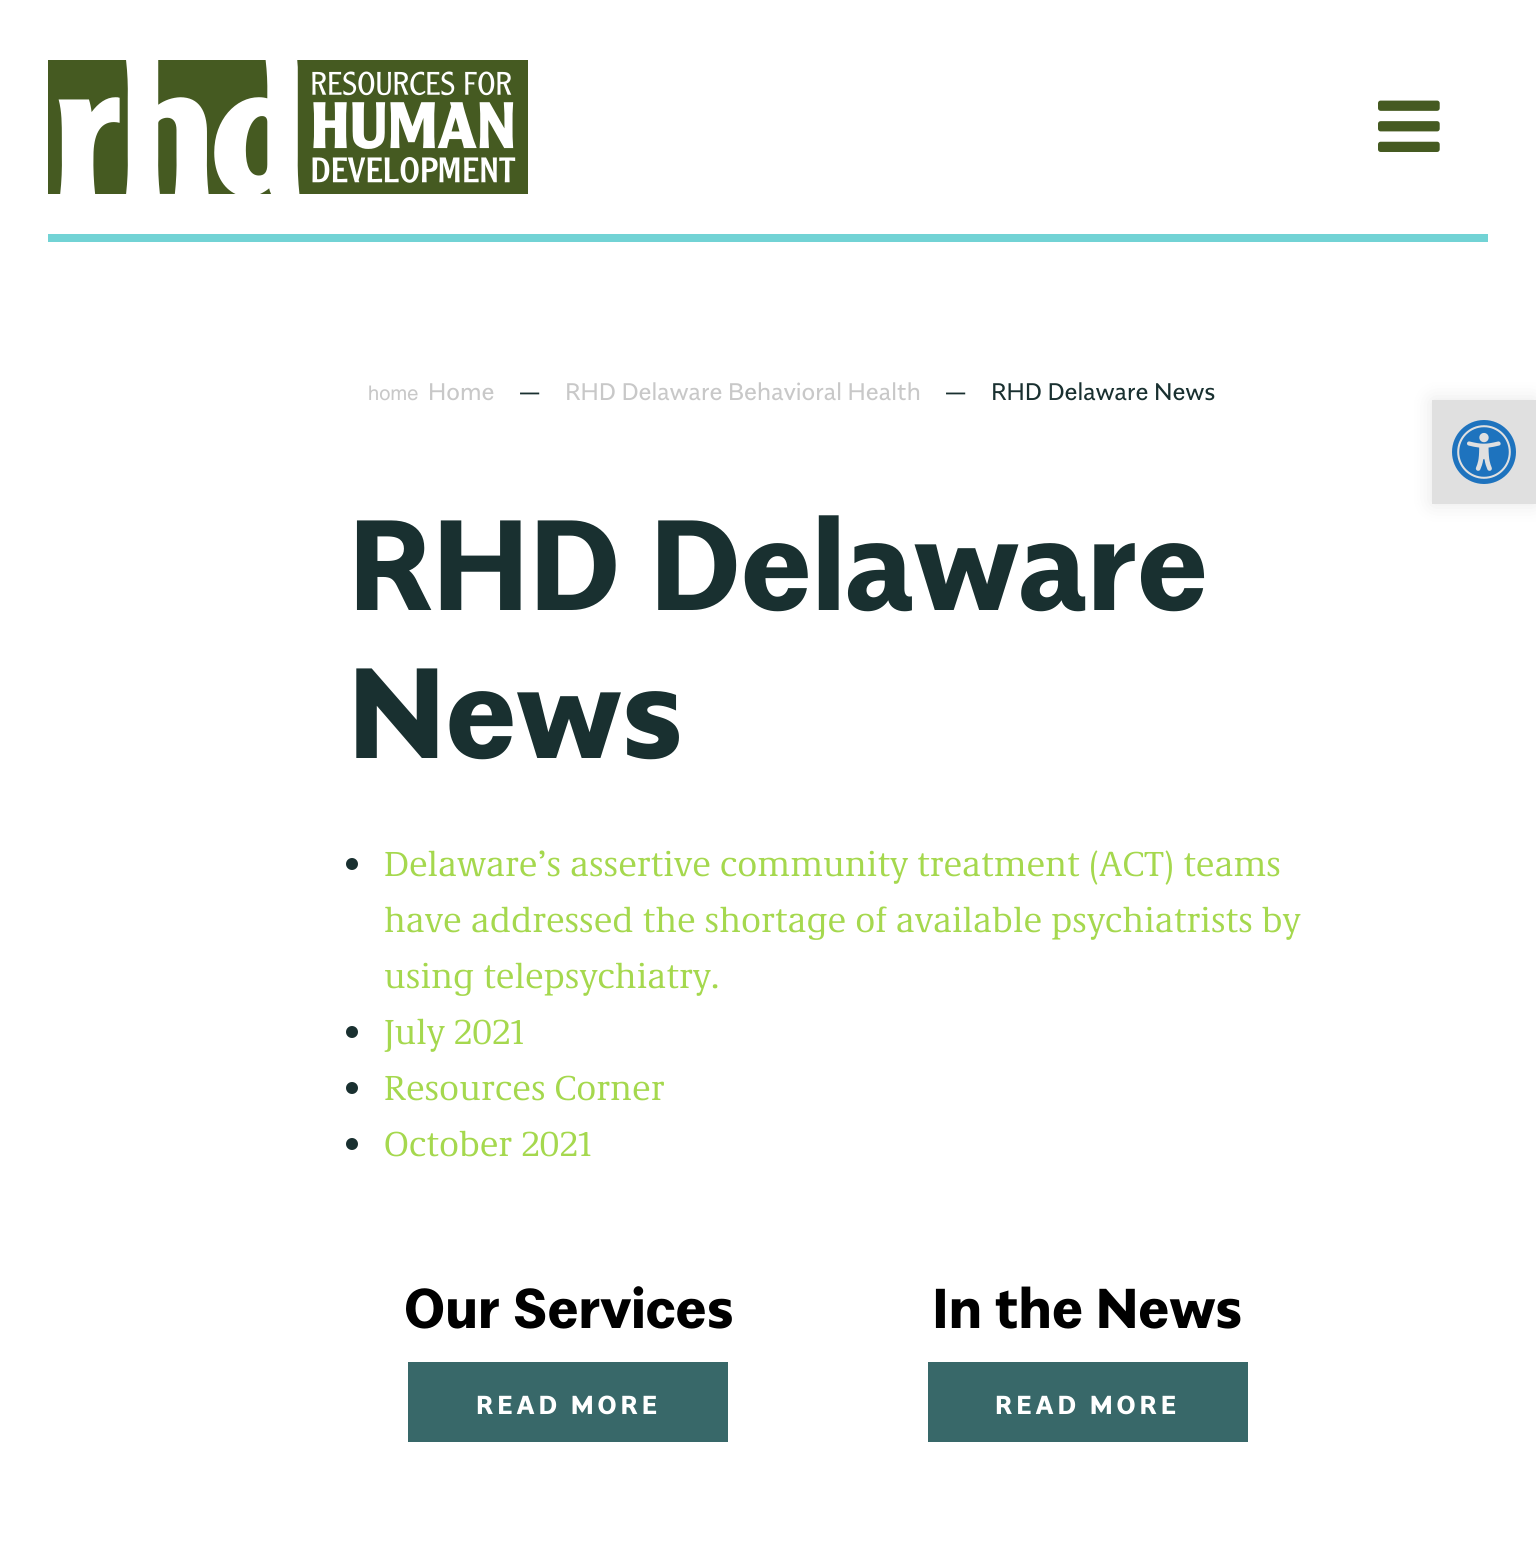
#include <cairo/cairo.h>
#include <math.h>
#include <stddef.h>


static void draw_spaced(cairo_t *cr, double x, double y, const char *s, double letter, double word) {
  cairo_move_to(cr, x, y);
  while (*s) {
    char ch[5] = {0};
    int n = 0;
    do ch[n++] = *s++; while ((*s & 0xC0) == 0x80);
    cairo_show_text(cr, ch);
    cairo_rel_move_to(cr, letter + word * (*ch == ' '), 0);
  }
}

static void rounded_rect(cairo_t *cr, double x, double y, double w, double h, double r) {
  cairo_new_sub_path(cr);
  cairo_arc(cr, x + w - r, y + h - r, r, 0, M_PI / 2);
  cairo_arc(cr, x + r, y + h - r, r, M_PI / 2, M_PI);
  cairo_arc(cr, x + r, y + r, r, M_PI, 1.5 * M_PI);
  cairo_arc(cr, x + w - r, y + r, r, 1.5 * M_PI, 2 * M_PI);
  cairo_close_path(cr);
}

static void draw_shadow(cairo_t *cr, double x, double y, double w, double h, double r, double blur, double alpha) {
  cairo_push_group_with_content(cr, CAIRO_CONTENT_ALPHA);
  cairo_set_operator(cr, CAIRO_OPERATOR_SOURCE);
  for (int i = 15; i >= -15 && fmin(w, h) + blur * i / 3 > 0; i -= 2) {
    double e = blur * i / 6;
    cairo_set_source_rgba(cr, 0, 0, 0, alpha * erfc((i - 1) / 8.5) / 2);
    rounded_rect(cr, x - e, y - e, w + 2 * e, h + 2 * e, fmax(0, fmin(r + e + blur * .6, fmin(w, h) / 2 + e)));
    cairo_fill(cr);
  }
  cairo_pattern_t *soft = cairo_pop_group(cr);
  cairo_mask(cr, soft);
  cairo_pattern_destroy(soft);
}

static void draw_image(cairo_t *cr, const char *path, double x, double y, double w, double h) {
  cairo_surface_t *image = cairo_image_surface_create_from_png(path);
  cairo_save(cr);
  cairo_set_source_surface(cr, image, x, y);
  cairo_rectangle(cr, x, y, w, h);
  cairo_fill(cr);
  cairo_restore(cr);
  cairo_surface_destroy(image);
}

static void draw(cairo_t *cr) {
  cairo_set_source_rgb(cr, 1, 1, 1);
  cairo_paint(cr);
  cairo_set_source_rgb(cr, 114 / 255.0, 211 / 255.0, 213 / 255.0);
  cairo_rectangle(cr, 48, 234, 1440, 8);
  cairo_fill(cr);
  draw_image(cr, "images/1.png", 48, 60, 480, 134);
  draw_image(cr, "images/2.png", 1378, 100, 62, 52);
  draw_image(cr, "images/3.png", 369, 385, 49, 16);
  cairo_set_source_rgb(cr, 25 / 255.0, 48 / 255.0, 48 / 255.0);
  cairo_arc(cr, 352, 864, 6, 0, 2 * M_PI);
  cairo_fill(cr);
  cairo_arc(cr, 352, 1032, 6, 0, 2 * M_PI);
  cairo_fill(cr);
  cairo_arc(cr, 352, 1088, 6, 0, 2 * M_PI);
  cairo_fill(cr);
  cairo_arc(cr, 352, 1144, 6, 0, 2 * M_PI);
  cairo_fill(cr);
  cairo_set_source_rgb(cr, 56 / 255.0, 104 / 255.0, 105 / 255.0);
  cairo_rectangle(cr, 408, 1362, 320, 80);
  cairo_fill(cr);
  cairo_rectangle(cr, 928, 1362, 320, 80);
  cairo_fill(cr);
  cairo_set_source_rgb(cr, 0, 0, 0);
  draw_shadow(cr, 1432, 400, 104, 104, 0, 10, 0.1);
  cairo_set_source_rgb(cr, 224 / 255.0, 224 / 255.0, 224 / 255.0);
  cairo_rectangle(cr, 1432, 400, 104, 104);
  cairo_fill(cr);
  draw_image(cr, "images/4.png", 1452, 420, 64, 64);
  cairo_select_font_face(cr, "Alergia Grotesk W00", CAIRO_FONT_SLANT_NORMAL, CAIRO_FONT_WEIGHT_NORMAL);
  cairo_set_font_size(cr, 24);
  cairo_set_source_rgb(cr, 200 / 255.0, 200 / 255.0, 200 / 255.0);
  cairo_move_to(cr, 428, 400);
  cairo_show_text(cr, "Home");
  cairo_set_source_rgb(cr, 25 / 255.0, 48 / 255.0, 48 / 255.0);
  cairo_move_to(cr, 520, 400);
  cairo_show_text(cr, "—");
  cairo_set_source_rgb(cr, 200 / 255.0, 200 / 255.0, 200 / 255.0);
  cairo_move_to(cr, 565, 400);
  cairo_show_text(cr, "RHD Delaware Behavioral Health");
  cairo_set_source_rgb(cr, 25 / 255.0, 48 / 255.0, 48 / 255.0);
  cairo_move_to(cr, 946, 400);
  cairo_show_text(cr, "—");
  cairo_move_to(cr, 991, 400);
  cairo_show_text(cr, "RHD Delaware News");
  cairo_select_font_face(cr, "Alergia Grotesk W00", CAIRO_FONT_SLANT_NORMAL, CAIRO_FONT_WEIGHT_BOLD);
  cairo_set_font_size(cr, 128);
  cairo_move_to(cr, 348, 610);
  cairo_show_text(cr, "RHD Delaware");
  cairo_move_to(cr, 348, 758);
  cairo_show_text(cr, "News");
  cairo_select_font_face(cr, "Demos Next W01", CAIRO_FONT_SLANT_NORMAL, CAIRO_FONT_WEIGHT_NORMAL);
  cairo_set_font_size(cr, 36);
  cairo_set_source_rgb(cr, 165 / 255.0, 216 / 255.0, 78 / 255.0);
  cairo_move_to(cr, 384, 876);
  cairo_show_text(cr, "Delaware’s assertive community treatment (ACT) teams");
  cairo_move_to(cr, 384, 932);
  cairo_show_text(cr, "have addressed the shortage of available psychiatrists by");
  cairo_move_to(cr, 384, 988);
  cairo_show_text(cr, "using telepsychiatry.");
  cairo_move_to(cr, 384, 1044);
  cairo_show_text(cr, "July 2021");
  cairo_move_to(cr, 384, 1100);
  cairo_show_text(cr, "Resources Corner");
  cairo_move_to(cr, 384, 1156);
  cairo_show_text(cr, "October 2021");
  cairo_select_font_face(cr, "Alergia Grotesk W00", CAIRO_FONT_SLANT_NORMAL, CAIRO_FONT_WEIGHT_BOLD);
  cairo_set_font_size(cr, 56);
  cairo_set_source_rgb(cr, 0, 0, 0);
  cairo_move_to(cr, 404, 1328);
  cairo_show_text(cr, "Our Services");
  cairo_set_font_size(cr, 26);
  cairo_set_source_rgb(cr, 1, 1, 1);
  draw_spaced(cr, 476, 1414, "READ MORE", 4, 0);
  cairo_set_font_size(cr, 56);
  cairo_set_source_rgb(cr, 0, 0, 0);
  cairo_move_to(cr, 932, 1328);
  cairo_show_text(cr, "In the News");
  cairo_set_font_size(cr, 26);
  cairo_set_source_rgb(cr, 1, 1, 1);
  draw_spaced(cr, 995, 1414, "READ MORE", 4, 0);
}

int main(void) {
  cairo_surface_t *surface = cairo_image_surface_create(CAIRO_FORMAT_RGB24, 1536, 1555);
  cairo_t *cr = cairo_create(surface);
  cairo_font_options_t *options = cairo_font_options_create();
  cairo_font_options_set_hint_metrics(options, CAIRO_HINT_METRICS_OFF);
  cairo_font_options_set_hint_style(options, CAIRO_HINT_STYLE_NONE);
  cairo_set_font_options(cr, options);
  cairo_set_miter_limit(cr, 4);
  draw(cr);
  cairo_surface_write_to_png(surface, "out.png");
  cairo_font_options_destroy(options);
  cairo_destroy(cr);
  cairo_surface_destroy(surface);
  return 0;
}
